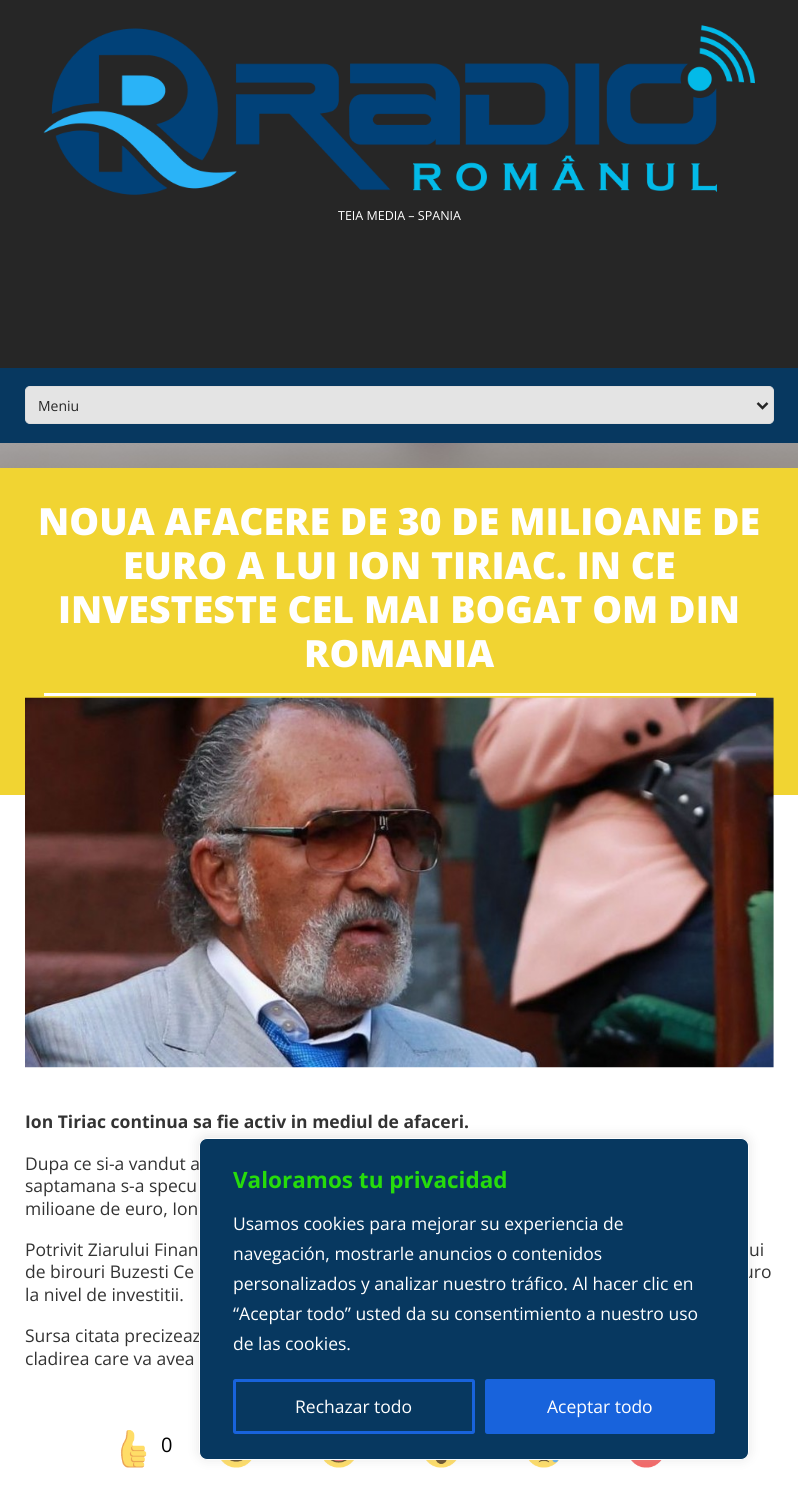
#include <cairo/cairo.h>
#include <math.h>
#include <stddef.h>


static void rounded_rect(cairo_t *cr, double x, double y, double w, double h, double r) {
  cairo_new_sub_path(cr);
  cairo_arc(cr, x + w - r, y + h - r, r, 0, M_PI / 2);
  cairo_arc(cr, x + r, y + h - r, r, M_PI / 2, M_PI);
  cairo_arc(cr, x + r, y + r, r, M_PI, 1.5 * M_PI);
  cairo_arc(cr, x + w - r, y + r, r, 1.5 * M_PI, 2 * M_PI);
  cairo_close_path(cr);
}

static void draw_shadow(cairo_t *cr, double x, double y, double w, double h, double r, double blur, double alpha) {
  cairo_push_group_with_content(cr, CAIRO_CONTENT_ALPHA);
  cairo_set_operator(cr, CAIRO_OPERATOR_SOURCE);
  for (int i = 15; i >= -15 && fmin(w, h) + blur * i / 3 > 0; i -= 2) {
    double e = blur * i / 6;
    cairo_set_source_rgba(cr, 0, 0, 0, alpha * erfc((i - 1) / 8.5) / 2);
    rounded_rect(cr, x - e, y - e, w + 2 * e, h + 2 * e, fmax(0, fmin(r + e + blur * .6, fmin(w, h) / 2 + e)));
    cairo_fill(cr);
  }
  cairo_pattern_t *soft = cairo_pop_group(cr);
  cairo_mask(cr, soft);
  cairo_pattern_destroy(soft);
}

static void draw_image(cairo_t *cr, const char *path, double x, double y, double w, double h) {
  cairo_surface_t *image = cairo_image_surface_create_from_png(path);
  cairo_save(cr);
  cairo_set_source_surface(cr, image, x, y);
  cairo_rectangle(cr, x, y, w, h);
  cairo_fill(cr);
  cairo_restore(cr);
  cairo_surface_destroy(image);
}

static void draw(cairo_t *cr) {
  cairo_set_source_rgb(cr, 1, 1, 1);
  cairo_paint(cr);
  draw_image(cr, "images/1.png", 0, 443, 798, 25);
  cairo_set_source_rgb(cr, 38 / 255.0, 38 / 255.0, 38 / 255.0);
  cairo_rectangle(cr, 0, 0, 798, 368);
  cairo_fill(cr);
  draw_image(cr, "images/2.png", 43, 25, 712, 170);
  cairo_set_source_rgb(cr, 7 / 255.0, 56 / 255.0, 96 / 255.0);
  cairo_rectangle(cr, 0, 368, 798, 75);
  cairo_fill(cr);
  cairo_set_source_rgb(cr, 228 / 255.0, 228 / 255.0, 228 / 255.0);
  rounded_rect(cr, 25.5, 386.5, 748, 37, 4.5);
  cairo_fill_preserve(cr);
  cairo_set_source_rgb(cr, 221 / 255.0, 221 / 255.0, 221 / 255.0);
  cairo_set_line_width(cr, 1);
  cairo_stroke(cr);
  cairo_new_path(cr);
  cairo_move_to(cr, 757.5, 403);
  cairo_line_to(cr, 762.5, 408);
  cairo_line_to(cr, 767.5, 403);
  cairo_set_source_rgb(cr, 38 / 255.0, 38 / 255.0, 38 / 255.0);
  cairo_set_line_width(cr, 2.5);
  cairo_stroke(cr);
  cairo_set_source_rgb(cr, 241 / 255.0, 212 / 255.0, 50 / 255.0);
  cairo_rectangle(cr, 0, 468, 798, 327);
  cairo_fill(cr);
  cairo_set_source_rgb(cr, 1, 1, 1);
  cairo_rectangle(cr, 44, 693, 712, 3);
  cairo_fill(cr);
  draw_image(cr, "images/3.png", 25, 697, 749, 371);
  draw_image(cr, "images/4.png", 120, 1430, 27, 38);
  draw_image(cr, "images/5.png", 221, 1460, 31, 8);
  draw_image(cr, "images/6.png", 323, 1460, 31, 8);
  draw_image(cr, "images/7.png", 426, 1460, 31, 8);
  draw_image(cr, "images/8.png", 528, 1460, 31, 8);
  draw_image(cr, "images/9.png", 631, 1460, 31, 8);
  cairo_set_source_rgb(cr, 172 / 255.0, 171 / 255.0, 171 / 255.0);
  draw_shadow(cr, 199, 1136, 550, 323, 8, 6, 0.3);
  cairo_select_font_face(cr, "Open Sans", CAIRO_FONT_SLANT_NORMAL, CAIRO_FONT_WEIGHT_NORMAL);
  cairo_set_font_size(cr, 12.5);
  cairo_set_source_rgb(cr, 1, 1, 1);
  cairo_move_to(cr, 338, 220);
  cairo_show_text(cr, "TEIA MEDIA – SPANIA");
  cairo_set_font_size(cr, 14);
  cairo_set_source_rgb(cr, 38 / 255.0, 38 / 255.0, 38 / 255.0);
  cairo_move_to(cr, 38, 411);
  cairo_show_text(cr, "Meniu");
  cairo_select_font_face(cr, "Open Sans ExtraBold", CAIRO_FONT_SLANT_NORMAL, CAIRO_FONT_WEIGHT_NORMAL);
  cairo_set_font_size(cr, 37.5);
  cairo_set_source_rgb(cr, 1, 1, 1);
  cairo_move_to(cr, 38, 535);
  cairo_show_text(cr, "NOUA AFACERE DE 30 DE MILIOANE DE");
  cairo_move_to(cr, 123, 579);
  cairo_show_text(cr, "EURO A LUI ION TIRIAC. IN CE");
  cairo_move_to(cr, 58, 623);
  cairo_show_text(cr, "INVESTESTE CEL MAI BOGAT OM DIN");
  cairo_move_to(cr, 304, 667);
  cairo_show_text(cr, "ROMANIA");
  cairo_select_font_face(cr, "Open Sans", CAIRO_FONT_SLANT_NORMAL, CAIRO_FONT_WEIGHT_BOLD);
  cairo_set_font_size(cr, 17.5);
  cairo_set_source_rgb(cr, 51 / 255.0, 51 / 255.0, 51 / 255.0);
  cairo_move_to(cr, 25, 1128);
  cairo_show_text(cr, "Ion Tiriac continua sa fie activ in mediul de afaceri.");
  cairo_select_font_face(cr, "Open Sans", CAIRO_FONT_SLANT_NORMAL, CAIRO_FONT_WEIGHT_NORMAL);
  cairo_move_to(cr, 25, 1170);
  cairo_show_text(cr, "Dupa ce si-a vandut a");
  cairo_move_to(cr, 25, 1192);
  cairo_show_text(cr, "saptamana s-a specu");
  cairo_move_to(cr, 25, 1215);
  cairo_show_text(cr, "milioane de euro, Ion");
  cairo_move_to(cr, 25, 1256);
  cairo_show_text(cr, "Potrivit Ziarului Finan");
  cairo_move_to(cr, 749, 1256);
  cairo_show_text(cr, "ui");
  cairo_move_to(cr, 25, 1278);
  cairo_show_text(cr, "de birouri Buzesti Ce");
  cairo_move_to(cr, 743, 1278);
  cairo_show_text(cr, "uro");
  cairo_move_to(cr, 25, 1301);
  cairo_show_text(cr, "la nivel de investitii.");
  cairo_move_to(cr, 25, 1342);
  cairo_show_text(cr, "Sursa citata precizeaz");
  cairo_move_to(cr, 25, 1365);
  cairo_show_text(cr, "cladirea care va avea");
  cairo_set_font_size(cr, 20);
  cairo_set_source_rgb(cr, 0, 0, 0);
  cairo_move_to(cr, 161, 1452);
  cairo_show_text(cr, "0");
  cairo_set_source_rgb(cr, 7 / 255.0, 56 / 255.0, 96 / 255.0);
  rounded_rect(cr, 199.5, 1138.5, 549, 321, 7.5);
  cairo_fill_preserve(cr);
  cairo_set_source_rgb(cr, 1, 1, 1);
  cairo_set_line_width(cr, 1);
  cairo_stroke(cr);
  cairo_select_font_face(cr, "Open Sans", CAIRO_FONT_SLANT_NORMAL, CAIRO_FONT_WEIGHT_BOLD);
  cairo_set_font_size(cr, 22.5);
  cairo_set_source_rgb(cr, 38 / 255.0, 220 / 255.0, 11 / 255.0);
  cairo_move_to(cr, 233, 1188);
  cairo_show_text(cr, "Valoramos tu privacidad");
  cairo_select_font_face(cr, "Open Sans", CAIRO_FONT_SLANT_NORMAL, CAIRO_FONT_WEIGHT_NORMAL);
  cairo_set_font_size(cr, 17.5);
  cairo_set_source_rgb(cr, 1, 1, 1);
  cairo_move_to(cr, 233, 1230);
  cairo_show_text(cr, "Usamos cookies para mejorar su experiencia de");
  cairo_move_to(cr, 233, 1260);
  cairo_show_text(cr, "navegación, mostrarle anuncios o contenidos");
  cairo_move_to(cr, 233, 1290);
  cairo_show_text(cr, "personalizados y analizar nuestro tráfico. Al hacer clic en");
  cairo_move_to(cr, 233, 1320);
  cairo_show_text(cr, "“Aceptar todo” usted da su consentimiento a nuestro uso");
  cairo_move_to(cr, 233, 1350);
  cairo_show_text(cr, "de las cookies.");
  rounded_rect(cr, 234.5, 1380.5, 239, 52, 1);
  cairo_set_source_rgb(cr, 24 / 255.0, 99 / 255.0, 220 / 255.0);
  cairo_set_line_width(cr, 3);
  cairo_stroke(cr);
  cairo_set_source_rgb(cr, 1, 1, 1);
  cairo_move_to(cr, 295, 1413);
  cairo_show_text(cr, "Rechazar todo");
  cairo_set_source_rgb(cr, 24 / 255.0, 99 / 255.0, 220 / 255.0);
  rounded_rect(cr, 486.5, 1380.5, 227, 52, 1);
  cairo_fill_preserve(cr);
  cairo_stroke(cr);
  cairo_set_source_rgb(cr, 1, 1, 1);
  cairo_move_to(cr, 547, 1413);
  cairo_show_text(cr, "Aceptar todo");
}

int main(void) {
  cairo_surface_t *surface = cairo_image_surface_create(CAIRO_FORMAT_RGB24, 798, 1509);
  cairo_t *cr = cairo_create(surface);
  cairo_font_options_t *options = cairo_font_options_create();
  cairo_font_options_set_hint_metrics(options, CAIRO_HINT_METRICS_OFF);
  cairo_font_options_set_hint_style(options, CAIRO_HINT_STYLE_NONE);
  cairo_set_font_options(cr, options);
  cairo_set_miter_limit(cr, 4);
  draw(cr);
  cairo_surface_write_to_png(surface, "out.png");
  cairo_font_options_destroy(options);
  cairo_destroy(cr);
  cairo_surface_destroy(surface);
  return 0;
}
